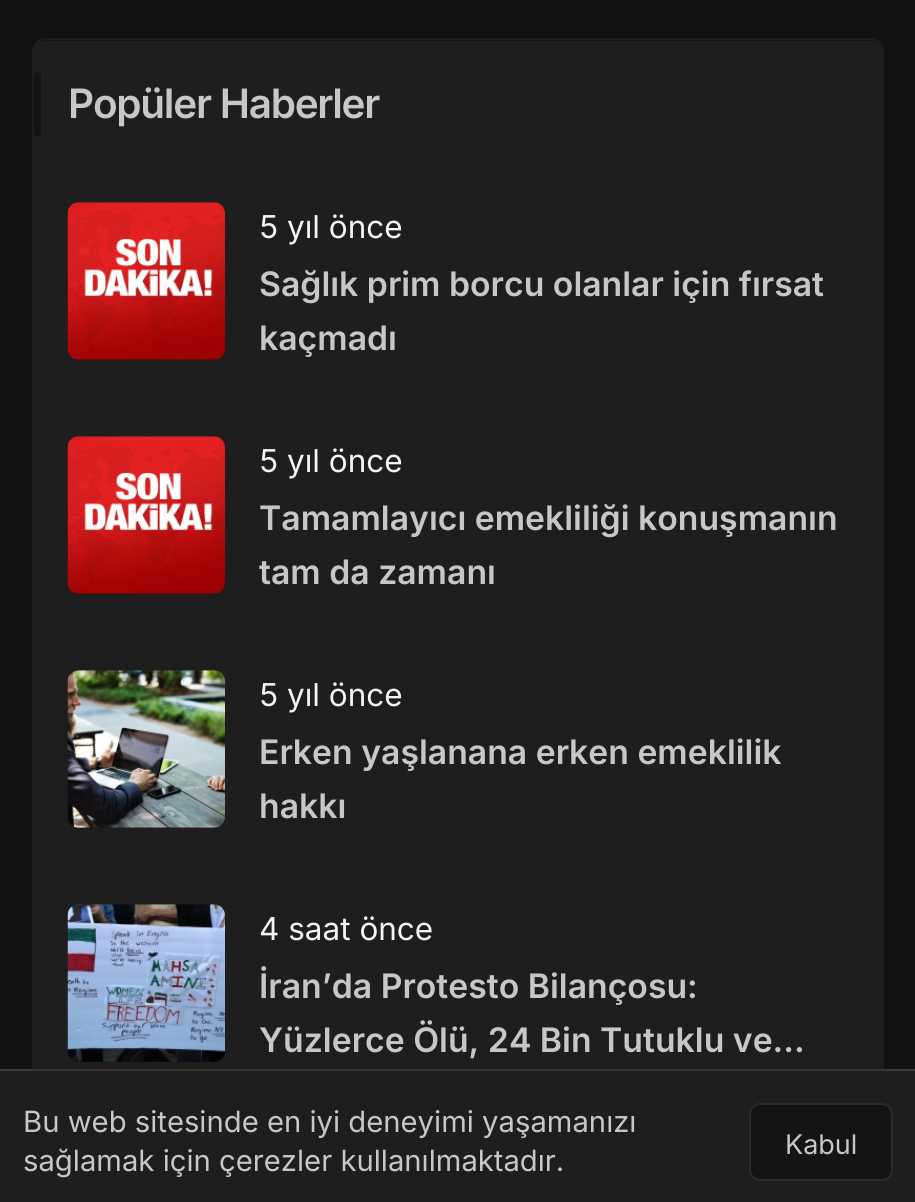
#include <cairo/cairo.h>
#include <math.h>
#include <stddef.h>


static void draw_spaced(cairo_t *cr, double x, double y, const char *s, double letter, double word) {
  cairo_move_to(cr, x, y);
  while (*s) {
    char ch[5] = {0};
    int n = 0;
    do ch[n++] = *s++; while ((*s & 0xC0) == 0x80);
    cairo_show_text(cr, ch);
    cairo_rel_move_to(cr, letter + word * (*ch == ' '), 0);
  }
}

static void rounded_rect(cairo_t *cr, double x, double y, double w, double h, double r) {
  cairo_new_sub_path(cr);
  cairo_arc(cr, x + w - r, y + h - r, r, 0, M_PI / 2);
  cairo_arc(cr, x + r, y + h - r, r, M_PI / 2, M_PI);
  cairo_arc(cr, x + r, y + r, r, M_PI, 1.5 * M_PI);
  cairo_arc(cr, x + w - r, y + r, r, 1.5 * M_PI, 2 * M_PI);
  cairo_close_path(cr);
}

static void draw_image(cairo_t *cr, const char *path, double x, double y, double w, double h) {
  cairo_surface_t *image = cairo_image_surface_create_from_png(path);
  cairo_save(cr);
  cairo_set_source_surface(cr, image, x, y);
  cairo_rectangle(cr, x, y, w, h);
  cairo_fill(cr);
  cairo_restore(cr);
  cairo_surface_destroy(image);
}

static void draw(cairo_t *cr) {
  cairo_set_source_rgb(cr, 18 / 255.0, 18 / 255.0, 18 / 255.0);
  cairo_paint(cr);
  rounded_rect(cr, 33, 39, 850, 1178, 13);
  cairo_set_source_rgb(cr, 30 / 255.0, 30 / 255.0, 30 / 255.0);
  cairo_stroke(cr);
  rounded_rect(cr, 34, 41, 848, 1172, 11);
  cairo_fill(cr);
  cairo_set_source_rgb(cr, 21 / 255.0, 20 / 255.0, 20 / 255.0);
  rounded_rect(cr, 34, 72, 7, 65, 3.5);
  cairo_fill(cr);
  rounded_rect(cr, 68, 203, 157, 157, 11);
  cairo_fill(cr);
  draw_image(cr, "images/1.png", 67, 202, 158, 158);
  rounded_rect(cr, 68, 437, 157, 157, 11);
  cairo_fill(cr);
  draw_image(cr, "images/1.png", 67, 436, 158, 158);
  rounded_rect(cr, 68, 671, 157, 157, 11);
  cairo_fill(cr);
  draw_image(cr, "images/2.png", 67, 670, 158, 158);
  rounded_rect(cr, 68, 905, 157, 157, 11);
  cairo_fill(cr);
  draw_image(cr, "images/3.png", 67, 904, 158, 158);
  cairo_set_source_rgb(cr, 30 / 255.0, 30 / 255.0, 30 / 255.0);
  cairo_rectangle(cr, 0, 1071, 915, 131);
  cairo_fill(cr);
  cairo_set_source_rgb(cr, 21 / 255.0, 20 / 255.0, 20 / 255.0);
  rounded_rect(cr, 749, 1103, 144, 78, 11);
  cairo_fill(cr);
  rounded_rect(cr, 750, 1104, 142, 76, 10);
  cairo_set_source_rgba(cr, 1, 1, 1, 0.1);
  cairo_stroke(cr);
  cairo_set_source_rgb(cr, 57 / 255.0, 57 / 255.0, 57 / 255.0);
  cairo_rectangle(cr, 0, 1069, 915, 2);
  cairo_fill(cr);
  cairo_select_font_face(cr, "Inter SemiBold", CAIRO_FONT_SLANT_NORMAL, CAIRO_FONT_WEIGHT_NORMAL);
  cairo_set_font_size(cr, 40.5);
  cairo_set_source_rgb(cr, 199 / 255.0, 199 / 255.0, 199 / 255.0);
  draw_spaced(cr, 68, 118, "Popüler Haberler", -1.25, 0);
  cairo_select_font_face(cr, "Inter", CAIRO_FONT_SLANT_NORMAL, CAIRO_FONT_WEIGHT_NORMAL);
  cairo_set_font_size(cr, 31.5);
  cairo_set_source_rgb(cr, 244 / 255.0, 244 / 255.0, 244 / 255.0);
  cairo_move_to(cr, 259, 238);
  cairo_show_text(cr, "5 yıl önce");
  cairo_select_font_face(cr, "Inter SemiBold", CAIRO_FONT_SLANT_NORMAL, CAIRO_FONT_WEIGHT_NORMAL);
  cairo_set_font_size(cr, 33.75);
  cairo_set_source_rgb(cr, 199 / 255.0, 199 / 255.0, 199 / 255.0);
  cairo_move_to(cr, 259, 296);
  cairo_show_text(cr, "Sağlık prim borcu olanlar için fırsat");
  cairo_move_to(cr, 259, 350);
  cairo_show_text(cr, "kaçmadı");
  cairo_select_font_face(cr, "Inter", CAIRO_FONT_SLANT_NORMAL, CAIRO_FONT_WEIGHT_NORMAL);
  cairo_set_font_size(cr, 31.5);
  cairo_set_source_rgb(cr, 244 / 255.0, 244 / 255.0, 244 / 255.0);
  cairo_move_to(cr, 259, 472);
  cairo_show_text(cr, "5 yıl önce");
  cairo_select_font_face(cr, "Inter SemiBold", CAIRO_FONT_SLANT_NORMAL, CAIRO_FONT_WEIGHT_NORMAL);
  cairo_set_font_size(cr, 33.75);
  cairo_set_source_rgb(cr, 199 / 255.0, 199 / 255.0, 199 / 255.0);
  cairo_move_to(cr, 259, 530);
  cairo_show_text(cr, "Tamamlayıcı emekliliği konuşmanın");
  cairo_move_to(cr, 259, 584);
  cairo_show_text(cr, "tam da zamanı");
  cairo_select_font_face(cr, "Inter", CAIRO_FONT_SLANT_NORMAL, CAIRO_FONT_WEIGHT_NORMAL);
  cairo_set_font_size(cr, 31.5);
  cairo_set_source_rgb(cr, 244 / 255.0, 244 / 255.0, 244 / 255.0);
  cairo_move_to(cr, 259, 706);
  cairo_show_text(cr, "5 yıl önce");
  cairo_select_font_face(cr, "Inter SemiBold", CAIRO_FONT_SLANT_NORMAL, CAIRO_FONT_WEIGHT_NORMAL);
  cairo_set_font_size(cr, 33.75);
  cairo_set_source_rgb(cr, 199 / 255.0, 199 / 255.0, 199 / 255.0);
  cairo_move_to(cr, 259, 764);
  cairo_show_text(cr, "Erken yaşlanana erken emeklilik");
  cairo_move_to(cr, 259, 818);
  cairo_show_text(cr, "hakkı");
  cairo_select_font_face(cr, "Inter", CAIRO_FONT_SLANT_NORMAL, CAIRO_FONT_WEIGHT_NORMAL);
  cairo_set_font_size(cr, 31.5);
  cairo_set_source_rgb(cr, 244 / 255.0, 244 / 255.0, 244 / 255.0);
  cairo_move_to(cr, 259, 940);
  cairo_show_text(cr, "4 saat önce");
  cairo_select_font_face(cr, "Inter SemiBold", CAIRO_FONT_SLANT_NORMAL, CAIRO_FONT_WEIGHT_NORMAL);
  cairo_set_font_size(cr, 33.75);
  cairo_set_source_rgb(cr, 199 / 255.0, 199 / 255.0, 199 / 255.0);
  cairo_move_to(cr, 259, 998);
  cairo_show_text(cr, "İran’da Protesto Bilançosu:");
  cairo_move_to(cr, 259, 1052);
  cairo_show_text(cr, "Yüzlerce Ölü, 24 Bin Tutuklu ve…");
  cairo_select_font_face(cr, "Inter", CAIRO_FONT_SLANT_NORMAL, CAIRO_FONT_WEIGHT_NORMAL);
  cairo_set_font_size(cr, 29.25);
  cairo_move_to(cr, 23, 1132);
  cairo_show_text(cr, "Bu web sitesinde en iyi deneyimi yaşamanızı");
  cairo_move_to(cr, 23, 1171);
  cairo_show_text(cr, "sağlamak için çerezler kullanılmaktadır.");
  cairo_set_font_size(cr, 27);
  cairo_move_to(cr, 785, 1154);
  cairo_show_text(cr, "Kabul");
}

int main(void) {
  cairo_surface_t *surface = cairo_image_surface_create(CAIRO_FORMAT_RGB24, 915, 1202);
  cairo_t *cr = cairo_create(surface);
  cairo_font_options_t *options = cairo_font_options_create();
  cairo_font_options_set_hint_metrics(options, CAIRO_HINT_METRICS_OFF);
  cairo_font_options_set_hint_style(options, CAIRO_HINT_STYLE_NONE);
  cairo_set_font_options(cr, options);
  cairo_set_miter_limit(cr, 4);
  draw(cr);
  cairo_surface_write_to_png(surface, "out.png");
  cairo_font_options_destroy(options);
  cairo_destroy(cr);
  cairo_surface_destroy(surface);
  return 0;
}
